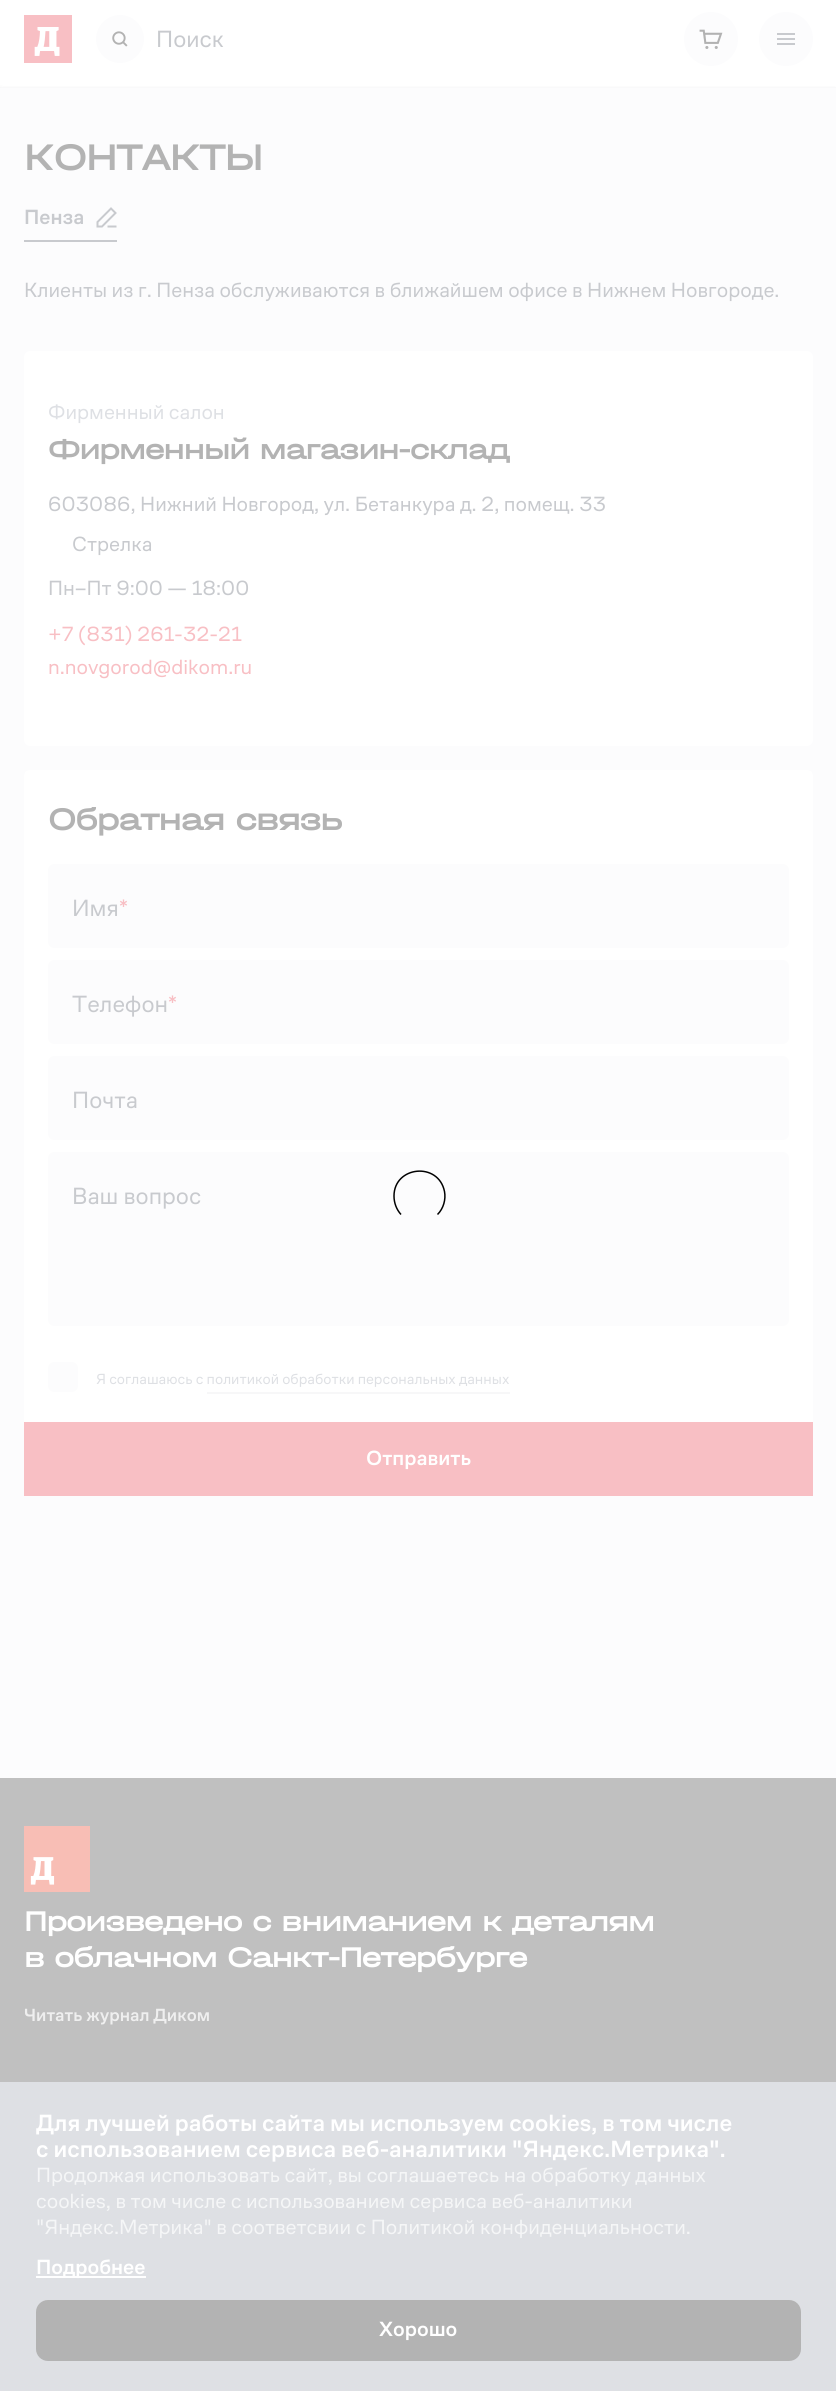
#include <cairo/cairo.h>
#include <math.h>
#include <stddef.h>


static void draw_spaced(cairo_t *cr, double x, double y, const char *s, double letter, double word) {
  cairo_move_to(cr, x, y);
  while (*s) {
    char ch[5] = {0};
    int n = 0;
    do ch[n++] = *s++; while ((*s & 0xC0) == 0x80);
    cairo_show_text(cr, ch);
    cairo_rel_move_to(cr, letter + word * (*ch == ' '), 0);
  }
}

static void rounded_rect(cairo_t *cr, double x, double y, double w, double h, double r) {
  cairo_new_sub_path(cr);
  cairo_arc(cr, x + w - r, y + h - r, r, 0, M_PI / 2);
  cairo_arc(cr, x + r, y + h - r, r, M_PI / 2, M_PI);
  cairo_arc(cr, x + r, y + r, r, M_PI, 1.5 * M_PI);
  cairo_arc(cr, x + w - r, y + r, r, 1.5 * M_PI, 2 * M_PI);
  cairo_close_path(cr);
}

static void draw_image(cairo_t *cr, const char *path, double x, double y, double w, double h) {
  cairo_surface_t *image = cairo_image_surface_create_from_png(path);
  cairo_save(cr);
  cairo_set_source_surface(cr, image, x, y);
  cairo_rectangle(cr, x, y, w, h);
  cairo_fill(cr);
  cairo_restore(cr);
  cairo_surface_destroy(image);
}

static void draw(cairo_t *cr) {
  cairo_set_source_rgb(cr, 1, 1, 1);
  cairo_paint(cr);
  draw_image(cr, "images/1.png", 24, 15, 48, 48);
  cairo_set_source_rgb(cr, 252 / 255.0, 252 / 255.0, 253 / 255.0);
  cairo_arc(cr, 120, 39, 24, 0, 2 * M_PI);
  cairo_fill(cr);
  draw_image(cr, "images/2.png", 112, 31, 16, 16);
  cairo_arc(cr, 711, 39, 27, 0, 2 * M_PI);
  cairo_fill(cr);
  draw_image(cr, "images/3.png", 699, 29, 24, 20);
  cairo_arc(cr, 786, 39, 27, 0, 2 * M_PI);
  cairo_fill(cr);
  cairo_set_source_rgb(cr, 200 / 255.0, 202 / 255.0, 206 / 255.0);
  cairo_rectangle(cr, 777, 33, 18, 2);
  cairo_fill(cr);
  cairo_rectangle(cr, 777, 38, 18, 2);
  cairo_fill(cr);
  cairo_rectangle(cr, 777, 43, 18, 2);
  cairo_fill(cr);
  cairo_set_source_rgb(cr, 252 / 255.0, 252 / 255.0, 253 / 255.0);
  cairo_rectangle(cr, 0, 87, 836, 1691);
  cairo_fill(cr);
  cairo_set_source_rgba(cr, 222 / 255.0, 224 / 255.0, 228 / 255.0, 0.1);
  cairo_new_path(cr);
  cairo_move_to(cr, 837, 88);
  cairo_line_to(cr, 0, 88);
  cairo_line_to(cr, 3, 86);
  cairo_line_to(cr, 834, 86);
  cairo_close_path(cr);
  cairo_fill(cr);
  cairo_set_source_rgba(cr, 226 / 255.0, 226 / 255.0, 226 / 255.0, 0.1);
  cairo_new_path(cr);
  cairo_move_to(cr, 0, 88.5);
  cairo_line_to(cr, 0, 85.5);
  cairo_line_to(cr, 3, 85.5);
  cairo_close_path(cr);
  cairo_fill(cr);
  cairo_set_source_rgb(cr, 200 / 255.0, 202 / 255.0, 206 / 255.0);
  cairo_rectangle(cr, 24, 240, 93, 2);
  cairo_fill(cr);
  cairo_new_path(cr);
  cairo_move_to(cr, 108.5, 226.5);
  cairo_line_to(cr, 115.5, 226.5);
  cairo_move_to(cr, 115.5, 213);
  cairo_line_to(cr, 111, 208.5);
  cairo_line_to(cr, 97.5, 222);
  cairo_line_to(cr, 97.5, 226.5);
  cairo_line_to(cr, 102, 226.5);
  cairo_close_path(cr);
  cairo_set_line_cap(cr, CAIRO_LINE_CAP_SQUARE);
  cairo_stroke(cr);
  cairo_set_source_rgb(cr, 1, 1, 1);
  rounded_rect(cr, 24, 351, 789, 395, 6);
  cairo_fill(cr);
  cairo_new_path(cr);
  cairo_move_to(cr, 30, 770);
  cairo_line_to(cr, 807, 770);
  cairo_curve_to(cr, 810.5, 770, 813, 772.5, 813, 776);
  cairo_line_to(cr, 813, 1496);
  cairo_line_to(cr, 24, 1496);
  cairo_line_to(cr, 24, 776);
  cairo_curve_to(cr, 24, 772.5, 26.5, 770, 30, 770);
  cairo_close_path(cr);
  cairo_fill(cr);
  cairo_set_source_rgb(cr, 252 / 255.0, 252 / 255.0, 253 / 255.0);
  rounded_rect(cr, 48, 864, 741, 84, 6);
  cairo_fill(cr);
  rounded_rect(cr, 48, 960, 741, 84, 6);
  cairo_fill(cr);
  rounded_rect(cr, 48, 1056, 741, 84, 6);
  cairo_fill(cr);
  rounded_rect(cr, 48, 1152, 741, 174, 6);
  cairo_fill(cr);
  rounded_rect(cr, 48, 1362, 30, 30, 6);
  cairo_fill(cr);
  cairo_set_source_rgb(cr, 247 / 255.0, 247 / 255.0, 248 / 255.0);
  cairo_rectangle(cr, 207, 1392, 303, 2);
  cairo_fill(cr);
  cairo_set_source_rgb(cr, 248 / 255.0, 191 / 255.0, 196 / 255.0);
  cairo_rectangle(cr, 24, 1422, 789, 74);
  cairo_fill(cr);
  cairo_set_source_rgb(cr, 192 / 255.0, 192 / 255.0, 192 / 255.0);
  cairo_rectangle(cr, 0, 1778, 836, 304);
  cairo_fill(cr);
  draw_image(cr, "images/4.png", 24, 1826, 66, 66);
  cairo_new_path(cr);
  cairo_move_to(cr, 401, 1214.5);
  cairo_curve_to(cr, 396.5, 1209.5, 394, 1203, 394, 1196);
  cairo_curve_to(cr, 394, 1166, 438.5, 1161.5, 444.5, 1191.5);
  cairo_curve_to(cr, 446, 1199.5, 443.5, 1208.5, 437.5, 1214.5);
  cairo_set_source_rgb(cr, 0, 0, 0);
  cairo_set_line_width(cr, 1.5);
  cairo_set_line_cap(cr, CAIRO_LINE_CAP_BUTT);
  cairo_stroke(cr);
  cairo_set_source_rgb(cr, 222 / 255.0, 224 / 255.0, 228 / 255.0);
  cairo_rectangle(cr, 0, 2082, 836, 309);
  cairo_fill(cr);
  cairo_set_source_rgb(cr, 1, 1, 1);
  cairo_rectangle(cr, 36, 2276, 110, 2);
  cairo_fill(cr);
  cairo_set_source_rgb(cr, 179 / 255.0, 179 / 255.0, 179 / 255.0);
  rounded_rect(cr, 36, 2300, 765, 61, 12);
  cairo_fill(cr);
  cairo_select_font_face(cr, "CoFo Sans", CAIRO_FONT_SLANT_NORMAL, CAIRO_FONT_WEIGHT_NORMAL);
  cairo_set_font_size(cr, 24);
  cairo_set_source_rgb(cr, 200 / 255.0, 202 / 255.0, 206 / 255.0);
  cairo_move_to(cr, 156, 47);
  cairo_show_text(cr, "Поиск");
  cairo_select_font_face(cr, "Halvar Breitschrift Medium", CAIRO_FONT_SLANT_NORMAL, CAIRO_FONT_WEIGHT_NORMAL);
  cairo_set_font_size(cr, 39);
  cairo_set_source_rgb(cr, 179 / 255.0, 179 / 255.0, 179 / 255.0);
  draw_spaced(cr, 24, 170, "КОНТАКТЫ", -1.75, 0);
  cairo_select_font_face(cr, "CoFo Sans Medium", CAIRO_FONT_SLANT_NORMAL, CAIRO_FONT_WEIGHT_NORMAL);
  cairo_set_font_size(cr, 21);
  cairo_set_source_rgb(cr, 200 / 255.0, 202 / 255.0, 206 / 255.0);
  cairo_move_to(cr, 24, 224);
  cairo_show_text(cr, "Пенза");
  cairo_select_font_face(cr, "CoFo Sans", CAIRO_FONT_SLANT_NORMAL, CAIRO_FONT_WEIGHT_NORMAL);
  cairo_move_to(cr, 24, 297);
  cairo_show_text(cr, "Клиенты из г. Пенза обслуживаются в ближайшем офисе в Нижнем Новгороде.");
  cairo_set_source_rgb(cr, 222 / 255.0, 224 / 255.0, 228 / 255.0);
  cairo_move_to(cr, 48, 419);
  cairo_show_text(cr, "Фирменный салон");
  cairo_select_font_face(cr, "Halvar Breitschrift Medium", CAIRO_FONT_SLANT_NORMAL, CAIRO_FONT_WEIGHT_NORMAL);
  cairo_set_font_size(cr, 30);
  cairo_set_source_rgb(cr, 179 / 255.0, 179 / 255.0, 179 / 255.0);
  draw_spaced(cr, 48, 459, "Фирменный магазин-склад", -1.5, 0);
  cairo_select_font_face(cr, "CoFo Sans", CAIRO_FONT_SLANT_NORMAL, CAIRO_FONT_WEIGHT_NORMAL);
  cairo_set_font_size(cr, 21);
  cairo_set_source_rgb(cr, 200 / 255.0, 202 / 255.0, 206 / 255.0);
  cairo_move_to(cr, 48, 511);
  cairo_show_text(cr, "603086, Нижний Новгород, ул. Бетанкура д. 2, помещ. 33");
  cairo_move_to(cr, 72, 551);
  cairo_show_text(cr, "Стрелка");
  cairo_move_to(cr, 48, 595);
  cairo_show_text(cr, "Пн–Пт 9:00 — 18:00");
  cairo_set_source_rgb(cr, 248 / 255.0, 191 / 255.0, 196 / 255.0);
  cairo_move_to(cr, 48, 641);
  cairo_show_text(cr, "+7 (831) 261-32-21");
  cairo_move_to(cr, 48, 674);
  cairo_show_text(cr, "n.novgorod@dikom.ru");
  cairo_select_font_face(cr, "Halvar Breitschrift Medium", CAIRO_FONT_SLANT_NORMAL, CAIRO_FONT_WEIGHT_NORMAL);
  cairo_set_font_size(cr, 33);
  cairo_set_source_rgb(cr, 179 / 255.0, 179 / 255.0, 179 / 255.0);
  draw_spaced(cr, 48, 830, "Обратная связь", -1.75, 0);
  cairo_select_font_face(cr, "CoFo Sans", CAIRO_FONT_SLANT_NORMAL, CAIRO_FONT_WEIGHT_NORMAL);
  cairo_set_font_size(cr, 24);
  cairo_set_source_rgb(cr, 200 / 255.0, 202 / 255.0, 206 / 255.0);
  cairo_move_to(cr, 72, 916);
  cairo_show_text(cr, "Имя");
  cairo_set_source_rgb(cr, 248 / 255.0, 191 / 255.0, 196 / 255.0);
  cairo_move_to(cr, 119, 916);
  cairo_show_text(cr, "*");
  cairo_set_source_rgb(cr, 200 / 255.0, 202 / 255.0, 206 / 255.0);
  cairo_move_to(cr, 72, 1012);
  cairo_show_text(cr, "Телефон");
  cairo_set_source_rgb(cr, 248 / 255.0, 191 / 255.0, 196 / 255.0);
  cairo_move_to(cr, 168, 1012);
  cairo_show_text(cr, "*");
  cairo_set_source_rgb(cr, 200 / 255.0, 202 / 255.0, 206 / 255.0);
  cairo_move_to(cr, 72, 1108);
  cairo_show_text(cr, "Почта");
  cairo_move_to(cr, 72, 1204);
  cairo_show_text(cr, "Ваш вопрос");
  cairo_set_font_size(cr, 15);
  cairo_set_source_rgb(cr, 222 / 255.0, 224 / 255.0, 228 / 255.0);
  cairo_move_to(cr, 96, 1384);
  cairo_show_text(cr, "Я соглашаюсь с политикой обработки персональных данных");
  cairo_select_font_face(cr, "CoFo Sans Medium", CAIRO_FONT_SLANT_NORMAL, CAIRO_FONT_WEIGHT_NORMAL);
  cairo_set_font_size(cr, 21);
  cairo_set_source_rgb(cr, 1, 1, 1);
  cairo_move_to(cr, 366, 1465);
  cairo_show_text(cr, "Отправить");
  cairo_select_font_face(cr, "Halvar Breitschrift Medium", CAIRO_FONT_SLANT_NORMAL, CAIRO_FONT_WEIGHT_NORMAL);
  cairo_set_font_size(cr, 30);
  draw_spaced(cr, 24, 1931, "Произведено с вниманием к деталям", -1.5, 0);
  draw_spaced(cr, 24, 1967, "в облачном Санкт‑Петербурге", -1.5, 0);
  cairo_select_font_face(cr, "CoFo Sans Medium", CAIRO_FONT_SLANT_NORMAL, CAIRO_FONT_WEIGHT_NORMAL);
  cairo_set_font_size(cr, 18);
  cairo_set_source_rgb(cr, 239 / 255.0, 239 / 255.0, 239 / 255.0);
  cairo_move_to(cr, 24, 2021);
  cairo_show_text(cr, "Читать журнал Диком");
  cairo_set_font_size(cr, 24);
  cairo_set_source_rgb(cr, 1, 1, 1);
  cairo_move_to(cr, 36, 2131);
  cairo_show_text(cr, "Для лучшей работы сайта мы используем cookies, в том числе");
  cairo_move_to(cr, 36, 2157);
  cairo_show_text(cr, "с использованием сервиса веб-аналитики \"Яндекс.Метрика\".");
  cairo_select_font_face(cr, "CoFo Sans", CAIRO_FONT_SLANT_NORMAL, CAIRO_FONT_WEIGHT_NORMAL);
  cairo_set_font_size(cr, 21);
  cairo_set_source_rgb(cr, 245 / 255.0, 246 / 255.0, 247 / 255.0);
  cairo_move_to(cr, 36, 2182);
  cairo_show_text(cr, "Продолжая использовать сайт, вы соглашаетесь на обработку данных");
  cairo_move_to(cr, 36, 2208);
  cairo_show_text(cr, "cookies, в том числе с использованием сервиса веб-аналитики");
  cairo_move_to(cr, 36, 2234);
  cairo_show_text(cr, "\"Яндекс.Метрика\" в соответсвии с Политикой конфиденциальности.");
  cairo_select_font_face(cr, "CoFo Sans Medium", CAIRO_FONT_SLANT_NORMAL, CAIRO_FONT_WEIGHT_NORMAL);
  cairo_set_source_rgb(cr, 1, 1, 1);
  cairo_move_to(cr, 36, 2274);
  cairo_show_text(cr, "Подробнее");
  cairo_move_to(cr, 379, 2336);
  cairo_show_text(cr, "Хорошо");
}

int main(void) {
  cairo_surface_t *surface = cairo_image_surface_create(CAIRO_FORMAT_RGB24, 836, 2391);
  cairo_t *cr = cairo_create(surface);
  cairo_font_options_t *options = cairo_font_options_create();
  cairo_font_options_set_hint_metrics(options, CAIRO_HINT_METRICS_OFF);
  cairo_font_options_set_hint_style(options, CAIRO_HINT_STYLE_NONE);
  cairo_set_font_options(cr, options);
  cairo_set_miter_limit(cr, 4);
  draw(cr);
  cairo_surface_write_to_png(surface, "out.png");
  cairo_font_options_destroy(options);
  cairo_destroy(cr);
  cairo_surface_destroy(surface);
  return 0;
}
